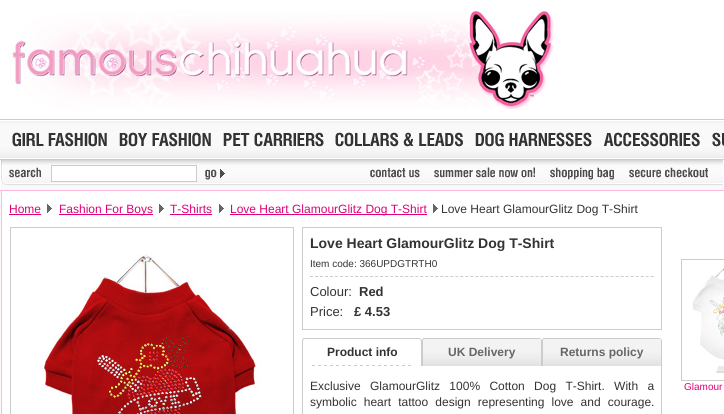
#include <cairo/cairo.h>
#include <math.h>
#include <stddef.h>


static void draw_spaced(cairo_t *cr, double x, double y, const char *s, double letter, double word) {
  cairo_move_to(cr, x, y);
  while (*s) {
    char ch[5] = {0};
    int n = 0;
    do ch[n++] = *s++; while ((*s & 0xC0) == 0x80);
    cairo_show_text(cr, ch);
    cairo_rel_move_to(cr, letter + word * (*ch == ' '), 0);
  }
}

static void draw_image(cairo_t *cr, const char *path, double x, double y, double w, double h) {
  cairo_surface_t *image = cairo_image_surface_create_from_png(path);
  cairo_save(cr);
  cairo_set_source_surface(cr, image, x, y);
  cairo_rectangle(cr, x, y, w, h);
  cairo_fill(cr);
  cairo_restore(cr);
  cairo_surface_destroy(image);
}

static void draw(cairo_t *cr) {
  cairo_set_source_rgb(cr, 1, 246 / 255.0, 251 / 255.0);
  cairo_paint(cr);
  cairo_set_source_rgb(cr, 1, 1, 1);
  cairo_rectangle(cr, 0, 0, 724, 119);
  cairo_fill(cr);
  draw_image(cr, "images/1.png", 9, 8, 545, 102);
  draw_image(cr, "images/2.png", 0, 120, 1, 39);
  cairo_set_source_rgb(cr, 204 / 255.0, 204 / 255.0, 204 / 255.0);
  cairo_rectangle(cr, 0, 119, 724, 1);
  cairo_fill(cr);
  cairo_rectangle(cr, 0, 159, 724, 1);
  cairo_fill(cr);
  draw_image(cr, "images/3.png", 1, 120, 723, 39);
  draw_image(cr, "images/4.png", 12, 132, 95, 15);
  draw_image(cr, "images/5.png", 119, 132, 92, 15);
  draw_image(cr, "images/6.png", 223, 132, 101, 15);
  draw_image(cr, "images/7.png", 335, 132, 128, 15);
  draw_image(cr, "images/8.png", 475, 132, 117, 15);
  draw_image(cr, "images/9.png", 603, 132, 97, 15);
  draw_image(cr, "images/10.png", 712, 132, 12, 15);
  cairo_set_source_rgb(cr, 1, 1, 1);
  cairo_rectangle(cr, 0, 160, 1, 31);
  cairo_fill(cr);
  cairo_set_source_rgb(cr, 253 / 255.0, 185 / 255.0, 222 / 255.0);
  cairo_rectangle(cr, 0, 190, 723, 1);
  cairo_fill(cr);
  cairo_set_source_rgb(cr, 249 / 255.0, 249 / 255.0, 249 / 255.0);
  cairo_rectangle(cr, 1, 180, 722, 10);
  cairo_fill(cr);
  draw_image(cr, "images/11.png", 1, 160, 722, 25);
  draw_image(cr, "images/12.png", 9, 167, 32, 11);
  cairo_set_source_rgb(cr, 1, 1, 1);
  cairo_rectangle(cr, 51.5, 165.5, 145, 16);
  cairo_fill_preserve(cr);
  cairo_set_source_rgb(cr, 204 / 255.0, 204 / 255.0, 204 / 255.0);
  cairo_set_line_width(cr, 1);
  cairo_stroke(cr);
  draw_image(cr, "images/13.png", 205, 169, 20, 11);
  draw_image(cr, "images/14.png", 370, 168, 50, 10);
  draw_image(cr, "images/15.png", 434, 167, 101, 11);
  draw_image(cr, "images/16.png", 550, 167, 64, 13);
  draw_image(cr, "images/17.png", 629, 167, 79, 11);
  cairo_set_source_rgb(cr, 1, 1, 1);
  cairo_rectangle(cr, 723, 160, 1, 31);
  cairo_fill(cr);
  cairo_set_source_rgb(cr, 253 / 255.0, 185 / 255.0, 222 / 255.0);
  cairo_rectangle(cr, 723, 190, 1, 1);
  cairo_fill(cr);
  cairo_set_source_rgb(cr, 1, 1, 1);
  cairo_rectangle(cr, 2, 191, 722, 223);
  cairo_fill(cr);
  cairo_set_source_rgb(cr, 253 / 255.0, 185 / 255.0, 222 / 255.0);
  cairo_rectangle(cr, 1, 191, 1, 223);
  cairo_fill(cr);
  cairo_set_source_rgb(cr, 223 / 255.0, 0, 122 / 255.0);
  cairo_rectangle(cr, 9, 214, 32, 1);
  cairo_fill(cr);
  draw_image(cr, "images/18.png", 47, 204, 5, 9);
  cairo_rectangle(cr, 59, 214, 94, 1);
  cairo_fill(cr);
  draw_image(cr, "images/18.png", 159, 204, 5, 9);
  cairo_rectangle(cr, 170, 214, 42, 1);
  cairo_fill(cr);
  draw_image(cr, "images/18.png", 219, 204, 5, 9);
  cairo_rectangle(cr, 230, 214, 197, 1);
  cairo_fill(cr);
  draw_image(cr, "images/18.png", 433, 204, 5, 9);
  cairo_rectangle(cr, 10.5, 227.5, 283, 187);
  cairo_set_source_rgb(cr, 204 / 255.0, 204 / 255.0, 204 / 255.0);
  cairo_stroke(cr);
  draw_image(cr, "images/19.png", 44, 253, 216, 161);
  cairo_rectangle(cr, 302.5, 227.5, 359, 102);
  cairo_stroke(cr);
  cairo_new_path(cr);
  cairo_move_to(cr, 310, 276.5);
  cairo_line_to(cr, 654, 276.5);
  cairo_set_dash(cr, (double[]){3, 2.01}, 2, 0);
  cairo_stroke(cr);
  draw_image(cr, "images/20.png", 302, 338, 120, 28);
  draw_image(cr, "images/21.png", 422, 338, 120, 28);
  draw_image(cr, "images/21.png", 542, 338, 120, 28);
  cairo_rectangle(cr, 661, 366, 1, 48);
  cairo_fill(cr);
  cairo_rectangle(cr, 302, 366, 1, 48);
  cairo_fill(cr);
  cairo_rectangle(cr, 681.5, 259.5, 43, 121);
  cairo_set_dash(cr, NULL, 0, 0);
  cairo_stroke(cr);
  draw_image(cr, "images/22.png", 692, 268, 32, 105);
  cairo_select_font_face(cr, "Liberation Sans", CAIRO_FONT_SLANT_NORMAL, CAIRO_FONT_WEIGHT_NORMAL);
  cairo_set_font_size(cr, 12);
  cairo_set_source_rgb(cr, 223 / 255.0, 0, 122 / 255.0);
  cairo_move_to(cr, 9, 213);
  cairo_show_text(cr, "Home");
  cairo_move_to(cr, 59, 213);
  cairo_show_text(cr, "Fashion For Boys");
  cairo_move_to(cr, 170, 213);
  cairo_show_text(cr, "T-Shirts");
  cairo_move_to(cr, 230, 213);
  cairo_show_text(cr, "Love Heart GlamourGlitz Dog T-Shirt");
  cairo_set_source_rgb(cr, 51 / 255.0, 51 / 255.0, 51 / 255.0);
  cairo_move_to(cr, 441, 213);
  cairo_show_text(cr, "Love Heart GlamourGlitz Dog T-Shirt");
  cairo_select_font_face(cr, "Liberation Sans", CAIRO_FONT_SLANT_NORMAL, CAIRO_FONT_WEIGHT_BOLD);
  cairo_set_font_size(cr, 14);
  cairo_move_to(cr, 310, 248);
  cairo_show_text(cr, "Love Heart GlamourGlitz Dog T-Shirt");
  cairo_select_font_face(cr, "Liberation Sans", CAIRO_FONT_SLANT_NORMAL, CAIRO_FONT_WEIGHT_NORMAL);
  cairo_set_font_size(cr, 10);
  cairo_move_to(cr, 310, 267);
  cairo_show_text(cr, "Item code: 366UPDGTRTH0");
  cairo_set_font_size(cr, 13);
  cairo_move_to(cr, 310, 296);
  cairo_show_text(cr, "Colour:");
  cairo_select_font_face(cr, "Liberation Sans", CAIRO_FONT_SLANT_NORMAL, CAIRO_FONT_WEIGHT_BOLD);
  cairo_move_to(cr, 359, 296);
  cairo_show_text(cr, "Red");
  cairo_select_font_face(cr, "Liberation Sans", CAIRO_FONT_SLANT_NORMAL, CAIRO_FONT_WEIGHT_NORMAL);
  cairo_move_to(cr, 310, 316);
  cairo_show_text(cr, "Price:");
  cairo_select_font_face(cr, "Liberation Sans", CAIRO_FONT_SLANT_NORMAL, CAIRO_FONT_WEIGHT_BOLD);
  cairo_move_to(cr, 354, 316);
  cairo_show_text(cr, "£ 4.53");
  cairo_set_font_size(cr, 12);
  cairo_move_to(cr, 327, 356);
  cairo_show_text(cr, "Product info");
  cairo_set_source_rgb(cr, 102 / 255.0, 102 / 255.0, 102 / 255.0);
  cairo_move_to(cr, 448, 356);
  cairo_show_text(cr, "UK Delivery");
  cairo_move_to(cr, 560, 356);
  cairo_show_text(cr, "Returns policy");
  cairo_select_font_face(cr, "Liberation Sans", CAIRO_FONT_SLANT_NORMAL, CAIRO_FONT_WEIGHT_NORMAL);
  cairo_set_source_rgb(cr, 51 / 255.0, 51 / 255.0, 51 / 255.0);
  draw_spaced(cr, 310, 390, "Exclusive GlamourGlitz 100% Cotton Dog T-Shirt. With a", 0, 6);
  draw_spaced(cr, 310, 406, "symbolic heart tattoo design representing love and courage.", 0, 3.75);
  cairo_set_font_size(cr, 10);
  cairo_set_source_rgb(cr, 223 / 255.0, 0, 122 / 255.0);
  cairo_move_to(cr, 684, 390);
  cairo_show_text(cr, "Glamour");
}

int main(void) {
  cairo_surface_t *surface = cairo_image_surface_create(CAIRO_FORMAT_RGB24, 724, 414);
  cairo_t *cr = cairo_create(surface);
  cairo_font_options_t *options = cairo_font_options_create();
  cairo_font_options_set_hint_metrics(options, CAIRO_HINT_METRICS_OFF);
  cairo_font_options_set_hint_style(options, CAIRO_HINT_STYLE_NONE);
  cairo_set_font_options(cr, options);
  cairo_set_miter_limit(cr, 4);
  draw(cr);
  cairo_surface_write_to_png(surface, "out.png");
  cairo_font_options_destroy(options);
  cairo_destroy(cr);
  cairo_surface_destroy(surface);
  return 0;
}
